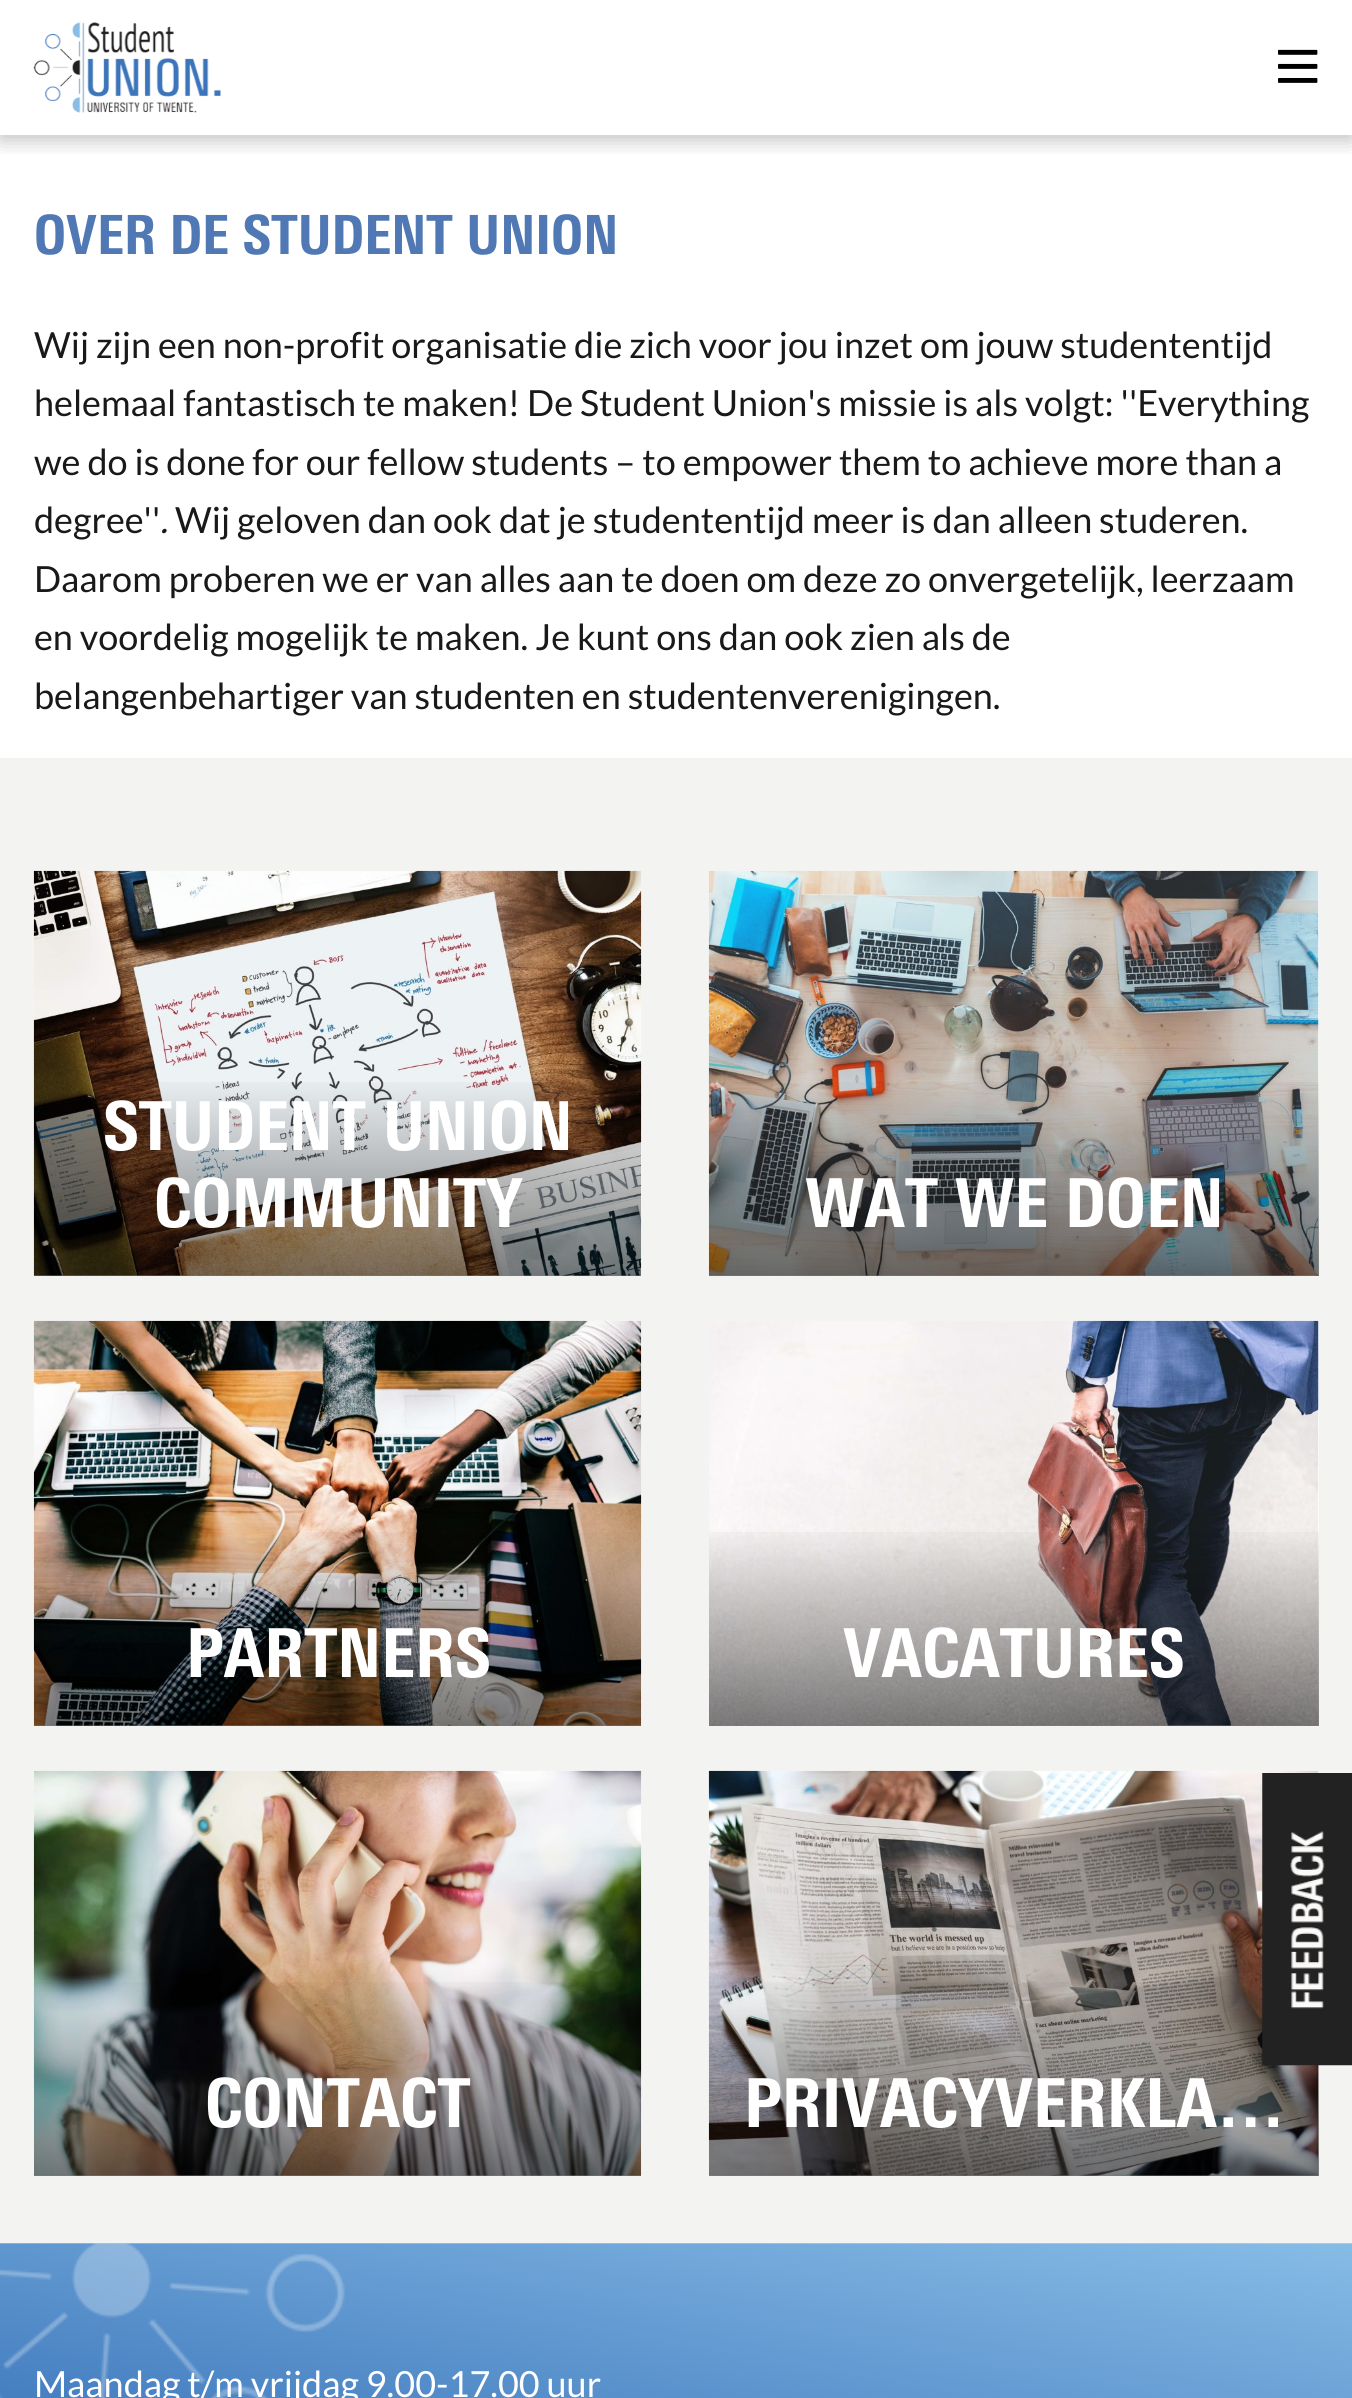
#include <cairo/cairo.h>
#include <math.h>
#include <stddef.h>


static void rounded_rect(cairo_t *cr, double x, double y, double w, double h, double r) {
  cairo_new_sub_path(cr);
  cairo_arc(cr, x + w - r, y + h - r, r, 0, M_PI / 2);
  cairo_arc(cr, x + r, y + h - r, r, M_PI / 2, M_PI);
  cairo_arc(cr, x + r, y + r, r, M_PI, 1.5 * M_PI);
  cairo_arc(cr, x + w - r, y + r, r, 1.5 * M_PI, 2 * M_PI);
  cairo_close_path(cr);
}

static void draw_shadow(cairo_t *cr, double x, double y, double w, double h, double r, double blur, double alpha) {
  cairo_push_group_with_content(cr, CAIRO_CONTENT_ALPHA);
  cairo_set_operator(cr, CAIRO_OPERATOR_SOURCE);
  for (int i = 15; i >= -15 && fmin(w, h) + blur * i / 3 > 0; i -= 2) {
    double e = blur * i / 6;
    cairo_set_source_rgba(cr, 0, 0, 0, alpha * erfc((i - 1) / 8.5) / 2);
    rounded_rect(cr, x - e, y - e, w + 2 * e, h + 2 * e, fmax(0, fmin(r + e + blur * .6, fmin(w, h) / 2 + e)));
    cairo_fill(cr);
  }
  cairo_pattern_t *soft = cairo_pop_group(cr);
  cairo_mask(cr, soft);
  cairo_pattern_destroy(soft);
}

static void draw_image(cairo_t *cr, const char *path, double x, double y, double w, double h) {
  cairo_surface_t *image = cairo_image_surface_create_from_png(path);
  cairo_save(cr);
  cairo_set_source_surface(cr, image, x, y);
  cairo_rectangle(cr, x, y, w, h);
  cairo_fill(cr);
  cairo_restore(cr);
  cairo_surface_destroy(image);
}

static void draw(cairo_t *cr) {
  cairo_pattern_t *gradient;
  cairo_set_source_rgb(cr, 1, 1, 1);
  cairo_paint(cr);
  cairo_save(cr);
  cairo_rectangle(cr, 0, 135, 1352, 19);
  cairo_clip(cr);
  cairo_set_source_rgb(cr, 0, 0, 0);
  draw_shadow(cr, 0, 5, 1352, 135, 0, 10, 0.25);
  cairo_restore(cr);
  draw_image(cr, "images/1.png", 33, 22, 188, 91);
  draw_image(cr, "images/2.png", 1278, 49, 40, 34);
  cairo_set_source_rgb(cr, 243 / 255.0, 243 / 255.0, 241 / 255.0);
  cairo_rectangle(cr, 0, 758, 1352, 1485);
  cairo_fill(cr);
  cairo_set_source_rgb(cr, 1, 1, 1);
  cairo_rectangle(cr, 34, 1275, 607, 1);
  cairo_fill(cr);
  draw_image(cr, "images/3.png", 33, 870, 609, 406);
  gradient = cairo_pattern_create_linear(338, 1073, 338, 1276);
  cairo_pattern_add_color_stop_rgba(gradient, 0, 0, 0, 0, 0);
  cairo_pattern_add_color_stop_rgba(gradient, 1, 0, 0, 0, 0.5);
  cairo_set_source(cr, gradient);
  cairo_pattern_destroy(gradient);
  cairo_rectangle(cr, 34, 1082, 607, 194);
  cairo_fill(cr);
  cairo_set_source_rgb(cr, 1, 1, 1);
  cairo_rectangle(cr, 709, 871, 610, 405);
  cairo_fill(cr);
  draw_image(cr, "images/4.png", 708, 870, 611, 406);
  gradient = cairo_pattern_create_linear(1014, 1073, 1014, 1276);
  cairo_pattern_add_color_stop_rgba(gradient, 0, 0, 0, 0, 0);
  cairo_pattern_add_color_stop_rgba(gradient, 1, 0, 0, 0, 0.5);
  cairo_set_source(cr, gradient);
  cairo_pattern_destroy(gradient);
  cairo_rectangle(cr, 709, 1082, 610, 194);
  cairo_fill(cr);
  cairo_set_source_rgb(cr, 1, 1, 1);
  cairo_rectangle(cr, 34, 1725, 607, 1);
  cairo_fill(cr);
  draw_image(cr, "images/5.png", 33, 1320, 609, 406);
  gradient = cairo_pattern_create_linear(338, 1523, 338, 1726);
  cairo_pattern_add_color_stop_rgba(gradient, 0, 0, 0, 0, 0);
  cairo_pattern_add_color_stop_rgba(gradient, 1, 0, 0, 0, 0.5);
  cairo_set_source(cr, gradient);
  cairo_pattern_destroy(gradient);
  cairo_rectangle(cr, 34, 1532, 607, 194);
  cairo_fill(cr);
  cairo_set_source_rgb(cr, 1, 1, 1);
  cairo_rectangle(cr, 709, 1321, 610, 405);
  cairo_fill(cr);
  draw_image(cr, "images/6.png", 709, 1320, 610, 406);
  gradient = cairo_pattern_create_linear(1014, 1523, 1014, 1726);
  cairo_pattern_add_color_stop_rgba(gradient, 0, 0, 0, 0, 0);
  cairo_pattern_add_color_stop_rgba(gradient, 1, 0, 0, 0, 0.5);
  cairo_set_source(cr, gradient);
  cairo_pattern_destroy(gradient);
  cairo_rectangle(cr, 709, 1532, 610, 194);
  cairo_fill(cr);
  cairo_set_source_rgb(cr, 1, 1, 1);
  cairo_rectangle(cr, 34, 2175, 607, 1);
  cairo_fill(cr);
  draw_image(cr, "images/7.png", 33, 1770, 609, 406);
  gradient = cairo_pattern_create_linear(338, 1973, 338, 2176);
  cairo_pattern_add_color_stop_rgba(gradient, 0, 0, 0, 0, 0);
  cairo_pattern_add_color_stop_rgba(gradient, 1, 0, 0, 0, 0.5);
  cairo_set_source(cr, gradient);
  cairo_pattern_destroy(gradient);
  cairo_rectangle(cr, 34, 1982, 607, 194);
  cairo_fill(cr);
  cairo_set_source_rgb(cr, 1, 1, 1);
  cairo_rectangle(cr, 709, 1771, 610, 405);
  cairo_fill(cr);
  draw_image(cr, "images/8.png", 708, 1770, 611, 406);
  gradient = cairo_pattern_create_linear(1014, 1973, 1014, 2176);
  cairo_pattern_add_color_stop_rgba(gradient, 0, 0, 0, 0, 0);
  cairo_pattern_add_color_stop_rgba(gradient, 1, 0, 0, 0, 0.5);
  cairo_set_source(cr, gradient);
  cairo_pattern_destroy(gradient);
  cairo_rectangle(cr, 709, 1982, 610, 194);
  cairo_fill(cr);
  draw_image(cr, "images/9.png", 1262, 1773, 90, 293);
  draw_image(cr, "images/10.png", 0, 2243, 1352, 155);
  cairo_select_font_face(cr, "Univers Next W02 Black", CAIRO_FONT_SLANT_NORMAL, CAIRO_FONT_WEIGHT_NORMAL);
  cairo_set_font_size(cr, 54);
  cairo_set_source_rgb(cr, 80 / 255.0, 120 / 255.0, 180 / 255.0);
  cairo_move_to(cr, 34, 254);
  cairo_show_text(cr, "OVER DE STUDENT UNION");
  cairo_select_font_face(cr, "Lato", CAIRO_FONT_SLANT_NORMAL, CAIRO_FONT_WEIGHT_NORMAL);
  cairo_set_font_size(cr, 36);
  cairo_set_source_rgb(cr, 25 / 255.0, 25 / 255.0, 25 / 255.0);
  cairo_move_to(cr, 34, 358);
  cairo_show_text(cr, "Wij zijn een non-profit organisatie die zich voor jou inzet om jouw studententijd");
  cairo_move_to(cr, 34, 416);
  cairo_show_text(cr, "helemaal fantastisch te maken! De Student Union's missie is als volgt: ''Everything");
  cairo_move_to(cr, 34, 475);
  cairo_show_text(cr, "we do is done for our fellow students – to empower them to achieve more than a");
  cairo_move_to(cr, 34, 533);
  cairo_show_text(cr, "degree''");
  cairo_select_font_face(cr, "Lato", CAIRO_FONT_SLANT_ITALIC, CAIRO_FONT_WEIGHT_NORMAL);
  cairo_move_to(cr, 160, 533);
  cairo_show_text(cr, ".");
  cairo_select_font_face(cr, "Lato", CAIRO_FONT_SLANT_NORMAL, CAIRO_FONT_WEIGHT_NORMAL);
  cairo_move_to(cr, 175, 533);
  cairo_show_text(cr, "Wij geloven dan ook dat je studententijd meer is dan alleen studeren.");
  cairo_move_to(cr, 34, 592);
  cairo_show_text(cr, "Daarom proberen we er van alles aan te doen om deze zo onvergetelijk, leerzaam");
  cairo_move_to(cr, 34, 650);
  cairo_show_text(cr, "en voordelig mogelijk te maken. Je kunt ons dan ook zien als de");
  cairo_move_to(cr, 34, 709);
  cairo_show_text(cr, "belangenbehartiger van studenten en studentenverenigingen.");
  cairo_select_font_face(cr, "Univers Next W02 Black", CAIRO_FONT_SLANT_NORMAL, CAIRO_FONT_WEIGHT_NORMAL);
  cairo_set_font_size(cr, 67.5);
  cairo_set_source_rgb(cr, 1, 1, 1);
  cairo_move_to(cr, 103, 1150);
  cairo_show_text(cr, "STUDENT UNION");
  cairo_move_to(cr, 154, 1227);
  cairo_show_text(cr, "COMMUNITY");
  cairo_move_to(cr, 805, 1227);
  cairo_show_text(cr, "WAT WE DOEN");
  cairo_move_to(cr, 186, 1677);
  cairo_show_text(cr, "PARTNERS");
  cairo_move_to(cr, 843, 1677);
  cairo_show_text(cr, "VACATURES");
  cairo_move_to(cr, 205, 2127);
  cairo_show_text(cr, "CONTACT");
  cairo_move_to(cr, 744, 2127);
  cairo_show_text(cr, "PRIVACYVERKLA…");
  cairo_select_font_face(cr, "Lato", CAIRO_FONT_SLANT_NORMAL, CAIRO_FONT_WEIGHT_NORMAL);
  cairo_set_font_size(cr, 36);
  cairo_move_to(cr, 34, 2397);
  cairo_show_text(cr, "Maandag t/m vrijdag 9.00-17.00 uur");
}

int main(void) {
  cairo_surface_t *surface = cairo_image_surface_create(CAIRO_FORMAT_RGB24, 1352, 2398);
  cairo_t *cr = cairo_create(surface);
  cairo_font_options_t *options = cairo_font_options_create();
  cairo_font_options_set_hint_metrics(options, CAIRO_HINT_METRICS_OFF);
  cairo_font_options_set_hint_style(options, CAIRO_HINT_STYLE_NONE);
  cairo_set_font_options(cr, options);
  cairo_set_miter_limit(cr, 4);
  draw(cr);
  cairo_surface_write_to_png(surface, "out.png");
  cairo_font_options_destroy(options);
  cairo_destroy(cr);
  cairo_surface_destroy(surface);
  return 0;
}
